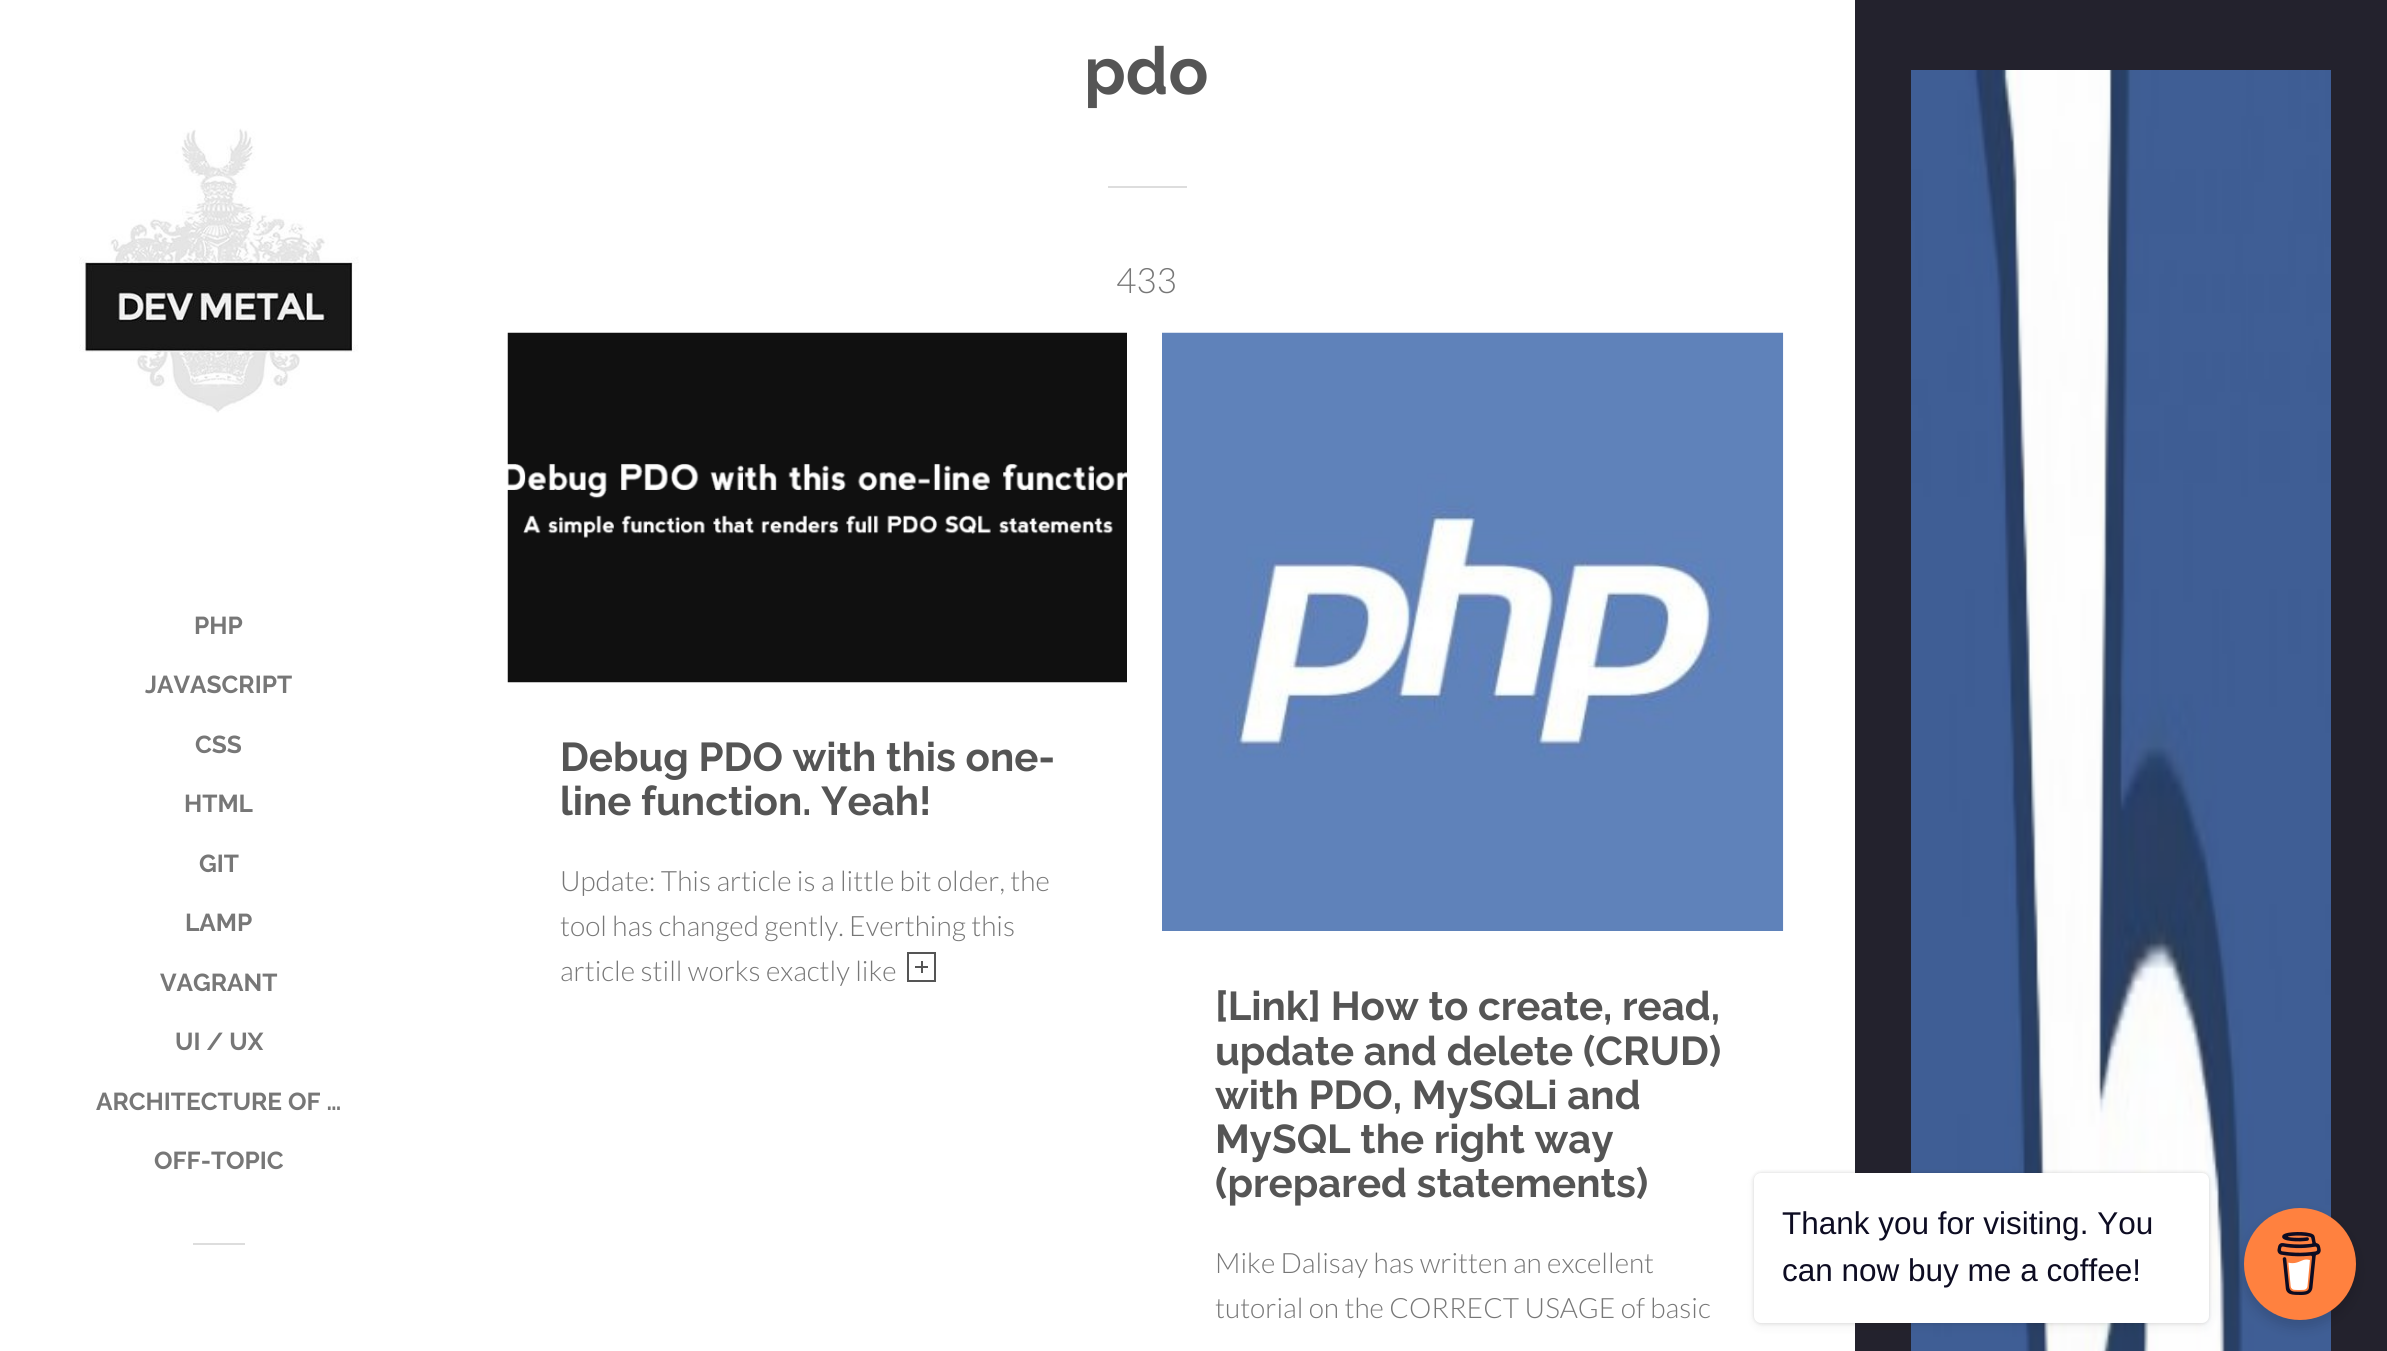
#include <cairo/cairo.h>
#include <math.h>
#include <stddef.h>


static void rounded_rect(cairo_t *cr, double x, double y, double w, double h, double r) {
  cairo_new_sub_path(cr);
  cairo_arc(cr, x + w - r, y + h - r, r, 0, M_PI / 2);
  cairo_arc(cr, x + r, y + h - r, r, M_PI / 2, M_PI);
  cairo_arc(cr, x + r, y + r, r, M_PI, 1.5 * M_PI);
  cairo_arc(cr, x + w - r, y + r, r, 1.5 * M_PI, 2 * M_PI);
  cairo_close_path(cr);
}

static void draw_shadow(cairo_t *cr, double x, double y, double w, double h, double r, double blur, double alpha) {
  cairo_push_group_with_content(cr, CAIRO_CONTENT_ALPHA);
  cairo_set_operator(cr, CAIRO_OPERATOR_SOURCE);
  for (int i = 15; i >= -15 && fmin(w, h) + blur * i / 3 > 0; i -= 2) {
    double e = blur * i / 6;
    cairo_set_source_rgba(cr, 0, 0, 0, alpha * erfc((i - 1) / 8.5) / 2);
    rounded_rect(cr, x - e, y - e, w + 2 * e, h + 2 * e, fmax(0, fmin(r + e + blur * .6, fmin(w, h) / 2 + e)));
    cairo_fill(cr);
  }
  cairo_pattern_t *soft = cairo_pop_group(cr);
  cairo_mask(cr, soft);
  cairo_pattern_destroy(soft);
}

static void draw_image(cairo_t *cr, const char *path, double x, double y, double w, double h) {
  cairo_surface_t *image = cairo_image_surface_create_from_png(path);
  cairo_save(cr);
  cairo_set_source_surface(cr, image, x, y);
  cairo_rectangle(cr, x, y, w, h);
  cairo_fill(cr);
  cairo_restore(cr);
  cairo_surface_destroy(image);
}

static void draw(cairo_t *cr) {
  cairo_set_source_rgb(cr, 1, 1, 1);
  cairo_paint(cr);
  draw_image(cr, "images/1.png", 79, 128, 280, 285);
  cairo_set_source_rgb(cr, 221 / 255.0, 221 / 255.0, 221 / 255.0);
  cairo_rectangle(cr, 193, 1243, 52, 2);
  cairo_fill(cr);
  cairo_rectangle(cr, 1108, 186, 79, 2);
  cairo_fill(cr);
  draw_image(cr, "images/2.png", 507, 332, 620, 351);
  cairo_rectangle(cr, 908, 953, 27, 28);
  cairo_set_source_rgb(cr, 85 / 255.0, 85 / 255.0, 85 / 255.0);
  cairo_stroke(cr);
  cairo_rectangle(cr, 915, 966, 13, 2);
  cairo_fill(cr);
  cairo_rectangle(cr, 921, 961, 2, 12);
  cairo_fill(cr);
  draw_image(cr, "images/3.png", 1162, 332, 622, 599);
  cairo_set_source_rgb(cr, 35 / 255.0, 34 / 255.0, 45 / 255.0);
  cairo_rectangle(cr, 1855, 0, 532, 1351);
  cairo_fill(cr);
  draw_image(cr, "images/4.png", 1911, 70, 420, 1281);
  cairo_set_source_rgb(cr, 0, 0, 0);
  draw_shadow(cr, 1754, 1173, 455, 150, 7, 2, 0.15);
  draw_shadow(cr, 1754, 1176, 455, 151, 7, 4.5, 0.05);
  cairo_set_source_rgb(cr, 1, 1, 1);
  rounded_rect(cr, 1754, 1173, 455, 150, 7);
  cairo_fill(cr);
  cairo_set_source_rgb(cr, 0, 0, 0);
  draw_shadow(cr, 2244, 1215, 112, 112, 56, 7, 0.15);
  cairo_set_source_rgb(cr, 1, 129 / 255.0, 63 / 255.0);
  cairo_arc(cr, 2300, 1264, 56, 0, 2 * M_PI);
  cairo_fill(cr);
  draw_image(cr, "images/5.png", 2277, 1232, 44, 63);
  cairo_select_font_face(cr, "Raleway Thin", CAIRO_FONT_SLANT_NORMAL, CAIRO_FONT_WEIGHT_NORMAL);
  cairo_set_font_size(cr, 24.5);
  cairo_set_source_rgb(cr, 119 / 255.0, 119 / 255.0, 119 / 255.0);
  cairo_move_to(cr, 194, 634);
  cairo_show_text(cr, "PHP");
  cairo_move_to(cr, 145, 693);
  cairo_show_text(cr, "JAVASCRIPT");
  cairo_move_to(cr, 195, 753);
  cairo_show_text(cr, "CSS");
  cairo_move_to(cr, 184, 812);
  cairo_show_text(cr, "HTML");
  cairo_move_to(cr, 199, 872);
  cairo_show_text(cr, "GIT");
  cairo_move_to(cr, 185, 931);
  cairo_show_text(cr, "LAMP");
  cairo_move_to(cr, 160, 991);
  cairo_show_text(cr, "VAGRANT");
  cairo_move_to(cr, 175, 1050);
  cairo_show_text(cr, "UI / UX");
  cairo_move_to(cr, 96, 1110);
  cairo_show_text(cr, "ARCHITECTURE OF …");
  cairo_move_to(cr, 154, 1169);
  cairo_show_text(cr, "OFF-TOPIC");
  cairo_set_font_size(cr, 66);
  cairo_set_source_rgb(cr, 85 / 255.0, 85 / 255.0, 85 / 255.0);
  cairo_move_to(cr, 1084, 94);
  cairo_show_text(cr, "pdo");
  cairo_select_font_face(cr, "Lato Light", CAIRO_FONT_SLANT_NORMAL, CAIRO_FONT_WEIGHT_NORMAL);
  cairo_set_font_size(cr, 35);
  cairo_set_source_rgb(cr, 119 / 255.0, 119 / 255.0, 119 / 255.0);
  cairo_move_to(cr, 1116, 293);
  cairo_show_text(cr, "433");
  cairo_select_font_face(cr, "Raleway Thin", CAIRO_FONT_SLANT_NORMAL, CAIRO_FONT_WEIGHT_NORMAL);
  cairo_set_font_size(cr, 40.25);
  cairo_set_source_rgb(cr, 85 / 255.0, 85 / 255.0, 85 / 255.0);
  cairo_move_to(cr, 560, 771);
  cairo_show_text(cr, "Debug PDO with this one-");
  cairo_move_to(cr, 560, 815);
  cairo_show_text(cr, "line function. Yeah!");
  cairo_select_font_face(cr, "Lato Light", CAIRO_FONT_SLANT_NORMAL, CAIRO_FONT_WEIGHT_NORMAL);
  cairo_set_font_size(cr, 28);
  cairo_set_source_rgb(cr, 119 / 255.0, 119 / 255.0, 119 / 255.0);
  cairo_move_to(cr, 560, 891);
  cairo_show_text(cr, "Update: This article is a little bit older, the");
  cairo_move_to(cr, 560, 936);
  cairo_show_text(cr, "tool has changed gently. Everthing this");
  cairo_move_to(cr, 560, 981);
  cairo_show_text(cr, "article still works exactly like");
  cairo_select_font_face(cr, "Raleway Thin", CAIRO_FONT_SLANT_NORMAL, CAIRO_FONT_WEIGHT_NORMAL);
  cairo_set_font_size(cr, 40.25);
  cairo_set_source_rgb(cr, 85 / 255.0, 85 / 255.0, 85 / 255.0);
  cairo_move_to(cr, 1215, 1020);
  cairo_show_text(cr, "[Link] How to create, read,");
  cairo_move_to(cr, 1215, 1065);
  cairo_show_text(cr, "update and delete (CRUD)");
  cairo_move_to(cr, 1215, 1109);
  cairo_show_text(cr, "with PDO, MySQLi and");
  cairo_move_to(cr, 1215, 1153);
  cairo_show_text(cr, "MySQL the right way");
  cairo_move_to(cr, 1215, 1197);
  cairo_show_text(cr, "(prepared statements)");
  cairo_select_font_face(cr, "Lato Light", CAIRO_FONT_SLANT_NORMAL, CAIRO_FONT_WEIGHT_NORMAL);
  cairo_set_font_size(cr, 28);
  cairo_set_source_rgb(cr, 119 / 255.0, 119 / 255.0, 119 / 255.0);
  cairo_move_to(cr, 1215, 1273);
  cairo_show_text(cr, "Mike Dalisay has written an excellent");
  cairo_move_to(cr, 1215, 1318);
  cairo_show_text(cr, "tutorial on the CORRECT USAGE of basic");
  cairo_select_font_face(cr, "Liberation Sans", CAIRO_FONT_SLANT_NORMAL, CAIRO_FONT_WEIGHT_NORMAL);
  cairo_set_font_size(cr, 31.5);
  cairo_set_source_rgb(cr, 13 / 255.0, 12 / 255.0, 34 / 255.0);
  cairo_move_to(cr, 1782, 1234);
  cairo_show_text(cr, "Thank you for visiting. You");
  cairo_move_to(cr, 1782, 1281);
  cairo_show_text(cr, "can now buy me a coffee!");
}

int main(void) {
  cairo_surface_t *surface = cairo_image_surface_create(CAIRO_FORMAT_RGB24, 2387, 1351);
  cairo_t *cr = cairo_create(surface);
  cairo_font_options_t *options = cairo_font_options_create();
  cairo_font_options_set_hint_metrics(options, CAIRO_HINT_METRICS_OFF);
  cairo_font_options_set_hint_style(options, CAIRO_HINT_STYLE_NONE);
  cairo_set_font_options(cr, options);
  cairo_set_miter_limit(cr, 4);
  draw(cr);
  cairo_surface_write_to_png(surface, "out.png");
  cairo_font_options_destroy(options);
  cairo_destroy(cr);
  cairo_surface_destroy(surface);
  return 0;
}
